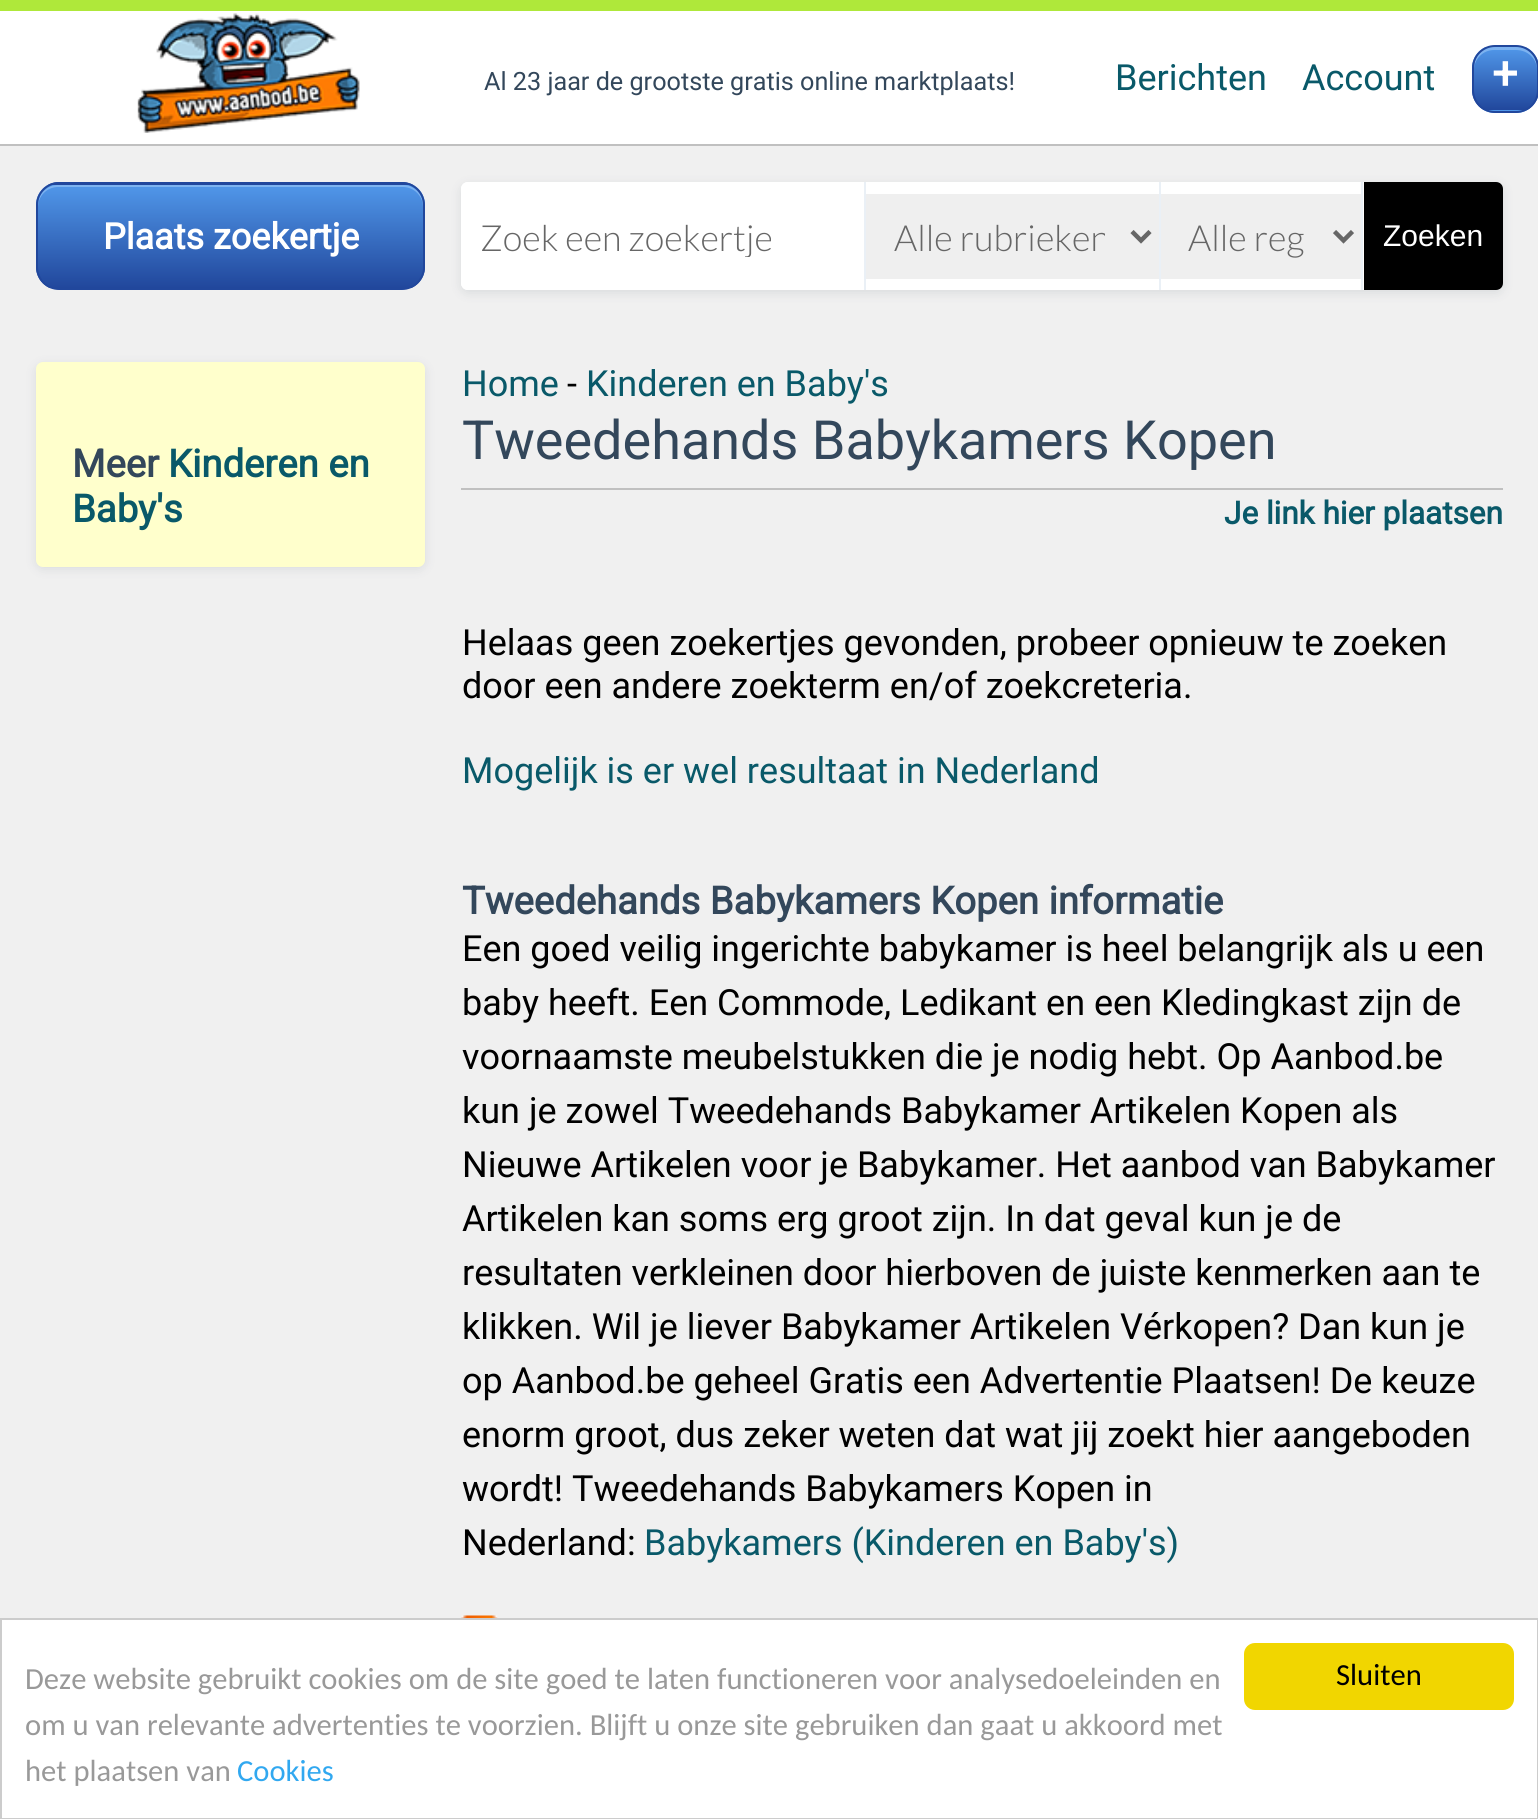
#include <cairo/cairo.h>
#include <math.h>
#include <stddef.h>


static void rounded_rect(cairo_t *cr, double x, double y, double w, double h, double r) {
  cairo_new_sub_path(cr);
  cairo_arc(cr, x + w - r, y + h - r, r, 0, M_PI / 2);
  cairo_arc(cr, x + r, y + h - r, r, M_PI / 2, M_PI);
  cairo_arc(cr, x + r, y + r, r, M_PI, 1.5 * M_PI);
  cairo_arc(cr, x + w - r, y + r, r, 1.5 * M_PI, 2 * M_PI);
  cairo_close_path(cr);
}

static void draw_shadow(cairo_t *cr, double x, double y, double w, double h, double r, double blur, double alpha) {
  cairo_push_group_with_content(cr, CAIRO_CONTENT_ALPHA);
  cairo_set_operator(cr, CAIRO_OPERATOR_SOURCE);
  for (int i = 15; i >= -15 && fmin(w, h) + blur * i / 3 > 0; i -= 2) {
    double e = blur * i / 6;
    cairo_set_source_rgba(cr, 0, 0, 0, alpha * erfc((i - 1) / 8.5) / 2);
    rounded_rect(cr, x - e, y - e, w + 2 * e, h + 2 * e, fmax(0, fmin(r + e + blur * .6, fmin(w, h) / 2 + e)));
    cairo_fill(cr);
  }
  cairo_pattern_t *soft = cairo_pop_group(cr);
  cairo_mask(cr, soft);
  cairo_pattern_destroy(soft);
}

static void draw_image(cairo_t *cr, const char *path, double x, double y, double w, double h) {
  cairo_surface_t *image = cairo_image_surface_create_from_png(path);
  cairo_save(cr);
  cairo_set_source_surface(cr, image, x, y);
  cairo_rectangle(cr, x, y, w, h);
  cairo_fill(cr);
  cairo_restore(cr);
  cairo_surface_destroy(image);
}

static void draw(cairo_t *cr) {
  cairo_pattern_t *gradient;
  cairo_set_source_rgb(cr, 240 / 255.0, 240 / 255.0, 240 / 255.0);
  cairo_paint(cr);
  cairo_set_source_rgb(cr, 175 / 255.0, 232 / 255.0, 58 / 255.0);
  cairo_rectangle(cr, 0, 0, 1538, 11);
  cairo_fill(cr);
  cairo_set_source_rgb(cr, 1, 1, 1);
  cairo_rectangle(cr, 0, 11, 1538, 133);
  cairo_fill(cr);
  cairo_set_source_rgb(cr, 192 / 255.0, 192 / 255.0, 192 / 255.0);
  cairo_rectangle(cr, 0, 144, 1538, 2);
  cairo_fill(cr);
  draw_image(cr, "images/1.png", 137, 13, 223, 120);
  cairo_save(cr);
  rounded_rect(cr, 1472, 45, 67, 68, 23);
  cairo_clip(cr);
  gradient = cairo_pattern_create_linear(1505, 47, 1505, 110);
  cairo_pattern_add_color_stop_rgba(gradient, 0, 81 / 255.0, 152 / 255.0, 234 / 255.0, 1);
  cairo_pattern_add_color_stop_rgba(gradient, 1, 33 / 255.0, 71 / 255.0, 156 / 255.0, 1);
  cairo_set_source(cr, gradient);
  cairo_pattern_destroy(gradient);
  cairo_rectangle(cr, 1472, 47, 66, 63);
  cairo_fill(cr);
  gradient = cairo_pattern_create_linear(1505, 110, 1505, 173);
  cairo_pattern_add_color_stop_rgba(gradient, 0, 81 / 255.0, 152 / 255.0, 234 / 255.0, 1);
  cairo_pattern_add_color_stop_rgba(gradient, 1, 33 / 255.0, 71 / 255.0, 156 / 255.0, 1);
  cairo_set_source(cr, gradient);
  cairo_pattern_destroy(gradient);
  cairo_rectangle(cr, 1483, 110, 45, 3);
  cairo_fill(cr);
  cairo_restore(cr);
  cairo_set_source_rgb(cr, 125 / 255.0, 179 / 255.0, 240 / 255.0);
  cairo_new_path(cr);
  cairo_move_to(cr, 1494, 50);
  cairo_line_to(cr, 1516, 50);
  cairo_curve_to(cr, 1528, 50, 1537, 59, 1537, 70);
  cairo_curve_to(cr, 1537, 59, 1533, 50, 1521, 47);
  cairo_line_to(cr, 1506, 47);
  cairo_line_to(cr, 1490, 47);
  cairo_curve_to(cr, 1478, 50, 1474, 59, 1474, 70);
  cairo_curve_to(cr, 1474, 59, 1483, 50, 1494, 50);
  cairo_close_path(cr);
  cairo_fill(cr);
  rounded_rect(cr, 1473, 46, 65, 66, 22);
  cairo_set_source_rgb(cr, 33 / 255.0, 71 / 255.0, 156 / 255.0);
  cairo_stroke(cr);
  cairo_save(cr);
  rounded_rect(cr, 36, 182, 389, 108, 23);
  cairo_clip(cr);
  gradient = cairo_pattern_create_linear(231, 81, 231, 185);
  cairo_pattern_add_color_stop_rgba(gradient, 0, 81 / 255.0, 152 / 255.0, 234 / 255.0, 1);
  cairo_pattern_add_color_stop_rgba(gradient, 1, 33 / 255.0, 71 / 255.0, 156 / 255.0, 1);
  cairo_set_source(cr, gradient);
  cairo_pattern_destroy(gradient);
  cairo_rectangle(cr, 47, 182, 367, 3);
  cairo_fill(cr);
  gradient = cairo_pattern_create_linear(231, 184, 231, 288);
  cairo_pattern_add_color_stop_rgba(gradient, 0, 81 / 255.0, 152 / 255.0, 234 / 255.0, 1);
  cairo_pattern_add_color_stop_rgba(gradient, 1, 33 / 255.0, 71 / 255.0, 156 / 255.0, 1);
  cairo_set_source(cr, gradient);
  cairo_pattern_destroy(gradient);
  cairo_rectangle(cr, 36, 185, 389, 103);
  cairo_fill(cr);
  cairo_restore(cr);
  cairo_set_source_rgb(cr, 125 / 255.0, 179 / 255.0, 240 / 255.0);
  cairo_new_path(cr);
  cairo_move_to(cr, 58, 187);
  cairo_line_to(cr, 403, 187);
  cairo_curve_to(cr, 414, 187, 423, 196, 423, 207);
  cairo_line_to(cr, 423, 205);
  cairo_curve_to(cr, 423, 194, 414, 185, 403, 185);
  cairo_line_to(cr, 58, 185);
  cairo_curve_to(cr, 47, 185, 38, 194, 38, 205);
  cairo_line_to(cr, 38, 207);
  cairo_curve_to(cr, 38, 196, 47, 187, 58, 187);
  cairo_close_path(cr);
  cairo_fill(cr);
  rounded_rect(cr, 37, 183, 387, 106, 22);
  cairo_set_source_rgb(cr, 33 / 255.0, 71 / 255.0, 156 / 255.0);
  cairo_stroke(cr);
  cairo_set_source_rgb(cr, 45 / 255.0, 62 / 255.0, 80 / 255.0);
  draw_shadow(cr, 461, 185, 1042, 108, 7, 5.5, 0.12);
  cairo_set_source_rgb(cr, 1, 1, 1);
  rounded_rect(cr, 461, 182, 1042, 108, 7);
  cairo_fill(cr);
  cairo_new_path(cr);
  cairo_move_to(cr, 468, 182);
  cairo_line_to(cr, 866, 182);
  cairo_line_to(cr, 866, 290);
  cairo_line_to(cr, 468, 290);
  cairo_curve_to(cr, 464, 290, 461, 287, 461, 283);
  cairo_line_to(cr, 461, 189);
  cairo_curve_to(cr, 461, 185, 464, 182, 468, 182);
  cairo_close_path(cr);
  cairo_fill(cr);
  cairo_set_source_rgb(cr, 234 / 255.0, 240 / 255.0, 246 / 255.0);
  cairo_rectangle(cr, 864, 182, 2, 108);
  cairo_fill(cr);
  cairo_rectangle(cr, 1159, 182, 2, 108);
  cairo_fill(cr);
  cairo_set_source_rgb(cr, 239 / 255.0, 239 / 255.0, 239 / 255.0);
  cairo_rectangle(cr, 866, 194, 293, 85);
  cairo_fill(cr);
  cairo_new_path(cr);
  cairo_move_to(cr, 1132, 231.5);
  cairo_line_to(cr, 1141, 240.5);
  cairo_line_to(cr, 1150, 231.5);
  cairo_set_source_rgb(cr, 102 / 255.0, 102 / 255.0, 102 / 255.0);
  cairo_set_line_width(cr, 4.5);
  cairo_stroke(cr);
  cairo_set_source_rgb(cr, 234 / 255.0, 240 / 255.0, 246 / 255.0);
  cairo_rectangle(cr, 1361, 182, 2, 108);
  cairo_fill(cr);
  cairo_set_source_rgb(cr, 239 / 255.0, 239 / 255.0, 239 / 255.0);
  cairo_rectangle(cr, 1161, 194, 200, 85);
  cairo_fill(cr);
  cairo_new_path(cr);
  cairo_move_to(cr, 1334.5, 231.5);
  cairo_line_to(cr, 1343.5, 240.5);
  cairo_line_to(cr, 1352.5, 231.5);
  cairo_set_source_rgb(cr, 102 / 255.0, 102 / 255.0, 102 / 255.0);
  cairo_stroke(cr);
  cairo_set_source_rgb(cr, 0, 0, 0);
  cairo_new_path(cr);
  cairo_move_to(cr, 1364, 182);
  cairo_line_to(cr, 1496, 182);
  cairo_curve_to(cr, 1500, 182, 1503, 185, 1503, 189);
  cairo_line_to(cr, 1503, 283);
  cairo_curve_to(cr, 1503, 287, 1500, 290, 1496, 290);
  cairo_line_to(cr, 1364, 290);
  cairo_close_path(cr);
  cairo_fill(cr);
  cairo_set_source_rgb(cr, 45 / 255.0, 62 / 255.0, 80 / 255.0);
  draw_shadow(cr, 36, 365, 389, 204, 7, 5.5, 0.12);
  cairo_set_source_rgb(cr, 1, 1, 204 / 255.0);
  rounded_rect(cr, 36, 362, 389, 205, 7);
  cairo_fill(cr);
  cairo_set_source_rgb(cr, 192 / 255.0, 192 / 255.0, 192 / 255.0);
  cairo_rectangle(cr, 461, 488, 1042, 2);
  cairo_fill(cr);
  draw_image(cr, "images/2.png", 461, 1615, 37, 3);
  cairo_set_source_rgb(cr, 1, 1, 1);
  cairo_rectangle(cr, 1, 1619, 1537, 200);
  cairo_fill_preserve(cr);
  cairo_set_source_rgb(cr, 204 / 255.0, 204 / 255.0, 204 / 255.0);
  cairo_set_line_width(cr, 2);
  cairo_stroke(cr);
  cairo_set_source_rgb(cr, 241 / 255.0, 214 / 255.0, 0);
  rounded_rect(cr, 1244, 1643, 270, 67, 11);
  cairo_fill(cr);
  cairo_select_font_face(cr, "Roboto", CAIRO_FONT_SLANT_NORMAL, CAIRO_FONT_WEIGHT_NORMAL);
  cairo_set_font_size(cr, 25.2);
  cairo_set_source_rgb(cr, 51 / 255.0, 71 / 255.0, 91 / 255.0);
  cairo_move_to(cr, 484, 90);
  cairo_show_text(cr, "Al 23 jaar de grootste gratis online marktplaats!");
  cairo_set_font_size(cr, 36);
  cairo_set_source_rgb(cr, 9 / 255.0, 89 / 255.0, 105 / 255.0);
  cairo_move_to(cr, 1115, 90);
  cairo_show_text(cr, "Berichten");
  cairo_move_to(cr, 1302, 90);
  cairo_show_text(cr, "Account");
  cairo_select_font_face(cr, "Roboto", CAIRO_FONT_SLANT_NORMAL, CAIRO_FONT_WEIGHT_BOLD);
  cairo_set_font_size(cr, 45);
  cairo_set_source_rgb(cr, 1, 1, 1);
  cairo_move_to(cr, 1492, 89);
  cairo_show_text(cr, "+");
  cairo_set_font_size(cr, 36);
  cairo_move_to(cr, 103, 249);
  cairo_show_text(cr, "Plaats zoekertje");
  cairo_save(cr);
  cairo_rectangle(cr, 479, 214, 333, 43);
  cairo_clip(cr);
  cairo_select_font_face(cr, "Lato Light", CAIRO_FONT_SLANT_NORMAL, CAIRO_FONT_WEIGHT_NORMAL);
  cairo_set_source_rgb(cr, 102 / 255.0, 102 / 255.0, 102 / 255.0);
  cairo_move_to(cr, 480, 251);
  cairo_show_text(cr, "Zoek een zoekertje");
  cairo_restore(cr);
  cairo_save(cr);
  cairo_rectangle(cr, 893, 212, 212, 47);
  cairo_clip(cr);
  cairo_select_font_face(cr, "Lato Light", CAIRO_FONT_SLANT_NORMAL, CAIRO_FONT_WEIGHT_NORMAL);
  cairo_set_source_rgb(cr, 102 / 255.0, 102 / 255.0, 102 / 255.0);
  cairo_move_to(cr, 894, 251);
  cairo_show_text(cr, "Alle rubrieken");
  cairo_restore(cr);
  cairo_select_font_face(cr, "Lato Light", CAIRO_FONT_SLANT_NORMAL, CAIRO_FONT_WEIGHT_NORMAL);
  cairo_set_source_rgb(cr, 102 / 255.0, 102 / 255.0, 102 / 255.0);
  cairo_move_to(cr, 1188, 251);
  cairo_show_text(cr, "Alle reg");
  cairo_select_font_face(cr, "Liberation Sans", CAIRO_FONT_SLANT_NORMAL, CAIRO_FONT_WEIGHT_NORMAL);
  cairo_set_font_size(cr, 30);
  cairo_set_source_rgb(cr, 1, 1, 1);
  cairo_move_to(cr, 1383, 246);
  cairo_show_text(cr, "Zoeken");
  cairo_select_font_face(cr, "Roboto", CAIRO_FONT_SLANT_NORMAL, CAIRO_FONT_WEIGHT_BOLD);
  cairo_set_font_size(cr, 38.25);
  cairo_set_source_rgb(cr, 51 / 255.0, 71 / 255.0, 91 / 255.0);
  cairo_move_to(cr, 72, 477);
  cairo_show_text(cr, "Meer");
  cairo_set_source_rgb(cr, 9 / 255.0, 89 / 255.0, 105 / 255.0);
  cairo_move_to(cr, 168, 477);
  cairo_show_text(cr, "Kinderen en");
  cairo_move_to(cr, 72, 522);
  cairo_show_text(cr, "Baby's");
  cairo_select_font_face(cr, "Roboto", CAIRO_FONT_SLANT_NORMAL, CAIRO_FONT_WEIGHT_NORMAL);
  cairo_set_font_size(cr, 36);
  cairo_move_to(cr, 462, 396);
  cairo_show_text(cr, "Home");
  cairo_set_source_rgb(cr, 0, 0, 0);
  cairo_move_to(cr, 567, 396);
  cairo_show_text(cr, "-");
  cairo_set_source_rgb(cr, 9 / 255.0, 89 / 255.0, 105 / 255.0);
  cairo_move_to(cr, 586, 396);
  cairo_show_text(cr, "Kinderen en Baby's");
  cairo_set_font_size(cr, 54);
  cairo_set_source_rgb(cr, 51 / 255.0, 71 / 255.0, 91 / 255.0);
  cairo_move_to(cr, 462, 459);
  cairo_show_text(cr, "Tweedehands Babykamers Kopen");
  cairo_select_font_face(cr, "Roboto", CAIRO_FONT_SLANT_NORMAL, CAIRO_FONT_WEIGHT_BOLD);
  cairo_set_font_size(cr, 31.5);
  cairo_set_source_rgb(cr, 9 / 255.0, 89 / 255.0, 105 / 255.0);
  cairo_move_to(cr, 1224, 524);
  cairo_show_text(cr, "Je link hier plaatsen");
  cairo_select_font_face(cr, "Roboto", CAIRO_FONT_SLANT_NORMAL, CAIRO_FONT_WEIGHT_NORMAL);
  cairo_set_font_size(cr, 36);
  cairo_set_source_rgb(cr, 0, 0, 0);
  cairo_move_to(cr, 462, 655);
  cairo_show_text(cr, "Helaas geen zoekertjes gevonden, probeer opnieuw te zoeken");
  cairo_move_to(cr, 462, 698);
  cairo_show_text(cr, "door een andere zoekterm en/of zoekcreteria.");
  cairo_set_source_rgb(cr, 9 / 255.0, 89 / 255.0, 105 / 255.0);
  cairo_move_to(cr, 462, 783);
  cairo_show_text(cr, "Mogelijk is er wel resultaat in Nederland");
  cairo_select_font_face(cr, "Roboto", CAIRO_FONT_SLANT_NORMAL, CAIRO_FONT_WEIGHT_BOLD);
  cairo_set_font_size(cr, 38.25);
  cairo_set_source_rgb(cr, 51 / 255.0, 71 / 255.0, 91 / 255.0);
  cairo_move_to(cr, 462, 914);
  cairo_show_text(cr, "Tweedehands Babykamers Kopen informatie");
  cairo_select_font_face(cr, "Roboto", CAIRO_FONT_SLANT_NORMAL, CAIRO_FONT_WEIGHT_NORMAL);
  cairo_set_font_size(cr, 36);
  cairo_set_source_rgb(cr, 0, 0, 0);
  cairo_move_to(cr, 462, 961);
  cairo_show_text(cr, "Een goed veilig ingerichte babykamer is heel belangrijk als u een");
  cairo_move_to(cr, 462, 1015);
  cairo_show_text(cr, "baby heeft. Een Commode, Ledikant en een Kledingkast zijn de");
  cairo_move_to(cr, 462, 1069);
  cairo_show_text(cr, "voornaamste meubelstukken die je nodig hebt. Op Aanbod.be");
  cairo_move_to(cr, 462, 1123);
  cairo_show_text(cr, "kun je zowel Tweedehands Babykamer Artikelen Kopen als");
  cairo_move_to(cr, 462, 1177);
  cairo_show_text(cr, "Nieuwe Artikelen voor je Babykamer. Het aanbod van Babykamer");
  cairo_move_to(cr, 462, 1231);
  cairo_show_text(cr, "Artikelen kan soms erg groot zijn. In dat geval kun je de");
  cairo_move_to(cr, 462, 1285);
  cairo_show_text(cr, "resultaten verkleinen door hierboven de juiste kenmerken aan te");
  cairo_move_to(cr, 462, 1339);
  cairo_show_text(cr, "klikken. Wil je liever Babykamer Artikelen Vérkopen? Dan kun je");
  cairo_move_to(cr, 462, 1393);
  cairo_show_text(cr, "op Aanbod.be geheel Gratis een Advertentie Plaatsen! De keuze");
  cairo_move_to(cr, 462, 1447);
  cairo_show_text(cr, "enorm groot, dus zeker weten dat wat jij zoekt hier aangeboden");
  cairo_move_to(cr, 462, 1501);
  cairo_show_text(cr, "wordt! Tweedehands Babykamers Kopen in");
  cairo_move_to(cr, 462, 1555);
  cairo_show_text(cr, "Nederland:");
  cairo_set_source_rgb(cr, 9 / 255.0, 89 / 255.0, 105 / 255.0);
  cairo_move_to(cr, 644, 1555);
  cairo_show_text(cr, "Babykamers (Kinderen en Baby's)");
  cairo_select_font_face(cr, "Carlito", CAIRO_FONT_SLANT_NORMAL, CAIRO_FONT_WEIGHT_NORMAL);
  cairo_set_font_size(cr, 30.6);
  cairo_set_source_rgb(cr, 153 / 255.0, 153 / 255.0, 153 / 255.0);
  cairo_move_to(cr, 25, 1689);
  cairo_show_text(cr, "Deze website gebruikt cookies om de site goed te laten functioneren voor analysedoeleinden en");
  cairo_move_to(cr, 25, 1735);
  cairo_show_text(cr, "om u van relevante advertenties te voorzien. Blijft u onze site gebruiken dan gaat u akkoord met");
  cairo_move_to(cr, 25, 1781);
  cairo_show_text(cr, "het plaatsen van");
  cairo_set_source_rgb(cr, 49 / 255.0, 168 / 255.0, 240 / 255.0);
  cairo_move_to(cr, 237, 1781);
  cairo_show_text(cr, "Cookies");
  cairo_set_source_rgb(cr, 0, 0, 0);
  cairo_move_to(cr, 1336, 1685);
  cairo_show_text(cr, "Sluiten");
}

int main(void) {
  cairo_surface_t *surface = cairo_image_surface_create(CAIRO_FORMAT_RGB24, 1538, 1819);
  cairo_t *cr = cairo_create(surface);
  cairo_font_options_t *options = cairo_font_options_create();
  cairo_font_options_set_hint_metrics(options, CAIRO_HINT_METRICS_OFF);
  cairo_font_options_set_hint_style(options, CAIRO_HINT_STYLE_NONE);
  cairo_set_font_options(cr, options);
  cairo_set_miter_limit(cr, 4);
  draw(cr);
  cairo_surface_write_to_png(surface, "out.png");
  cairo_font_options_destroy(options);
  cairo_destroy(cr);
  cairo_surface_destroy(surface);
  return 0;
}
